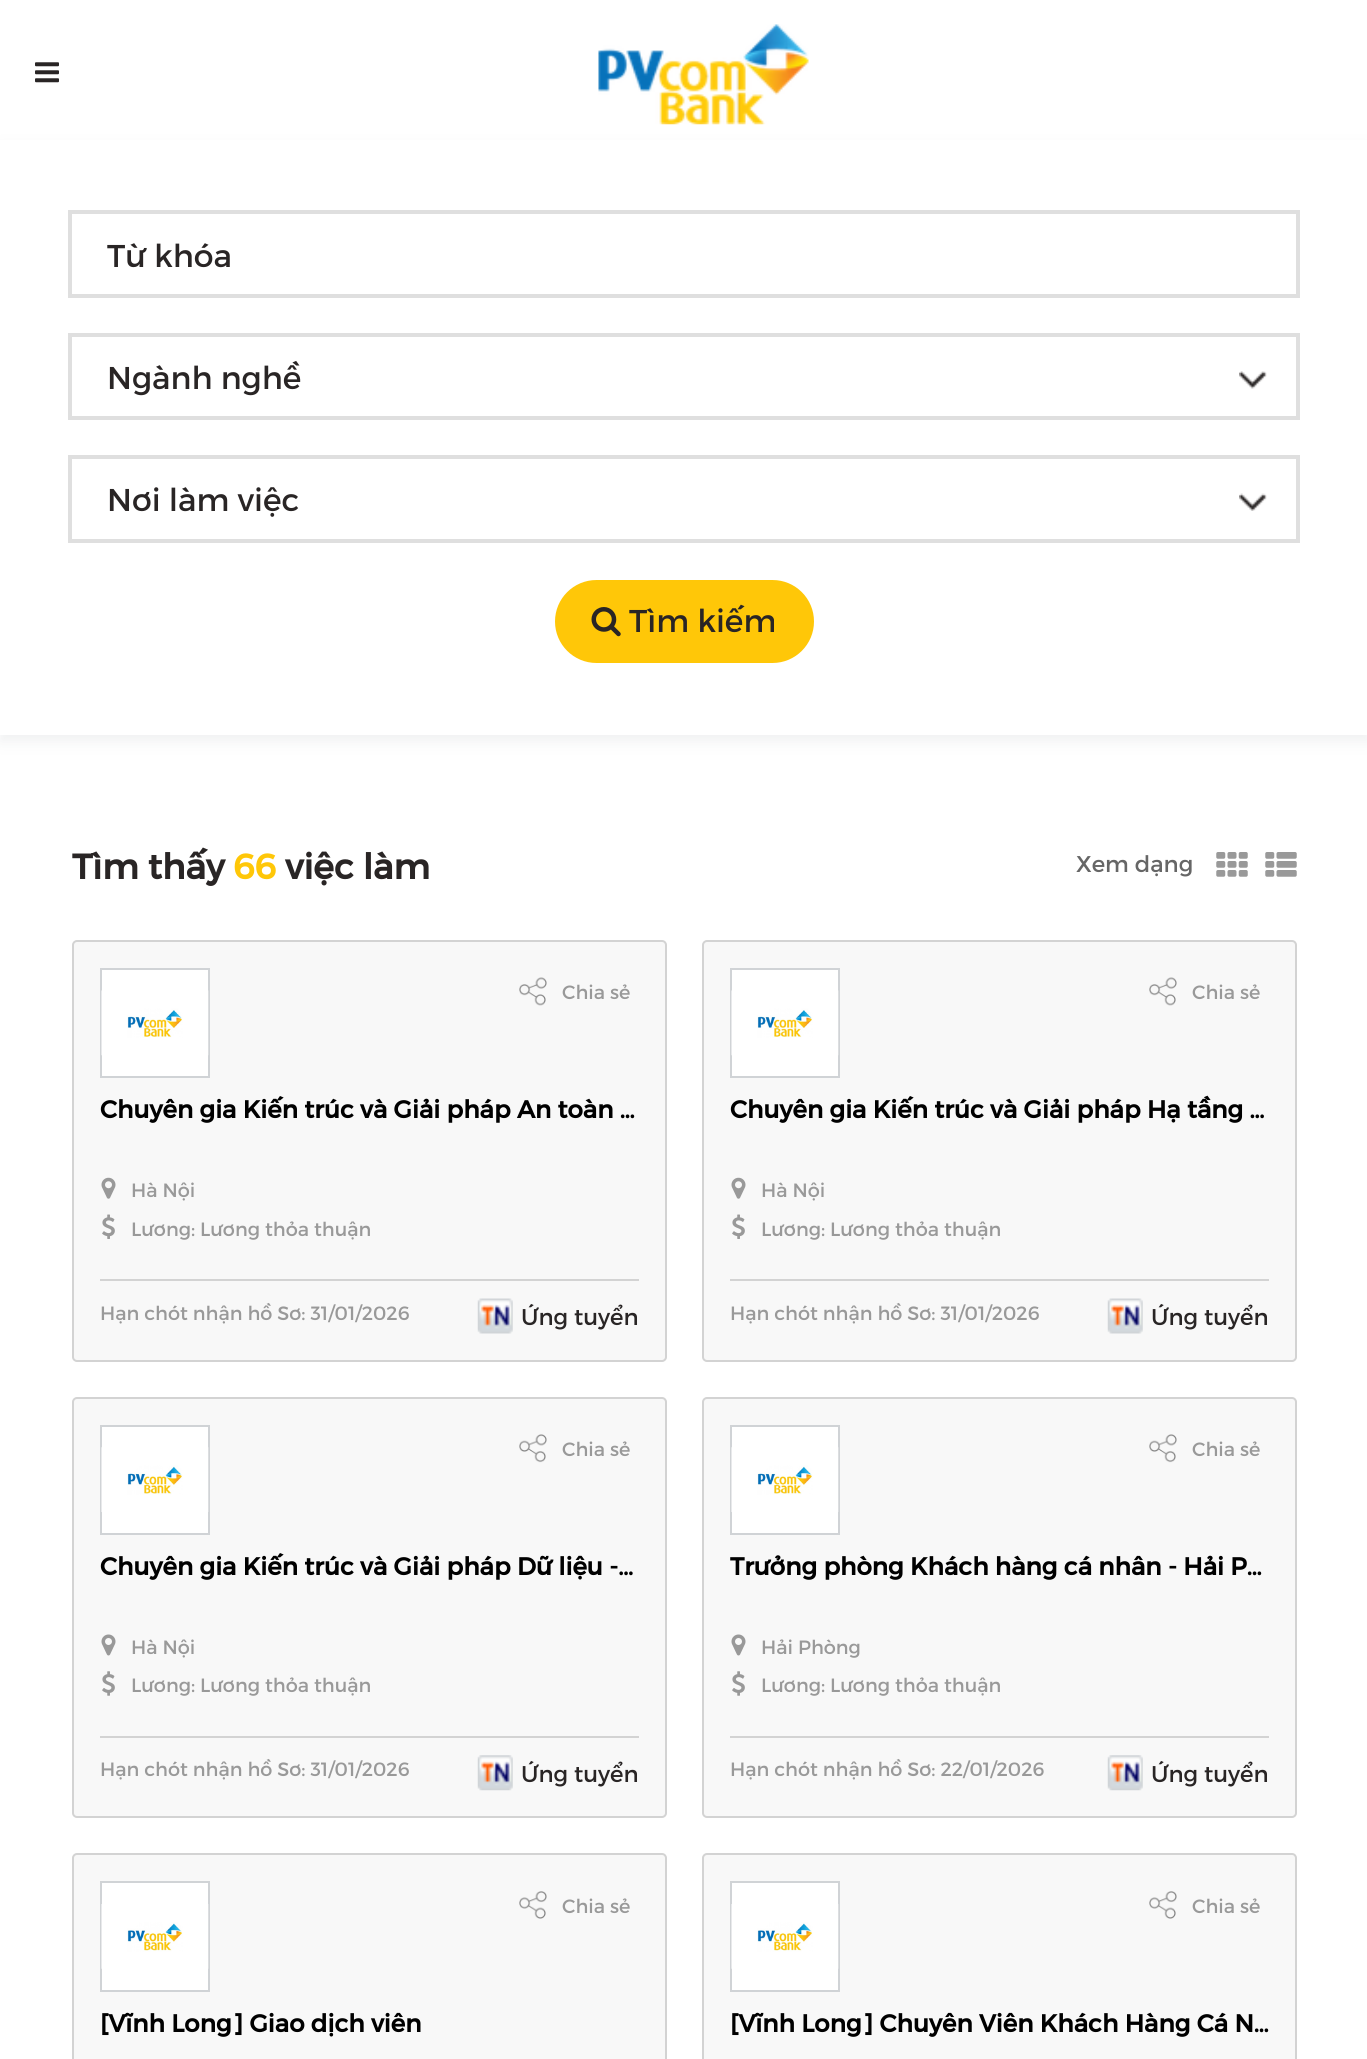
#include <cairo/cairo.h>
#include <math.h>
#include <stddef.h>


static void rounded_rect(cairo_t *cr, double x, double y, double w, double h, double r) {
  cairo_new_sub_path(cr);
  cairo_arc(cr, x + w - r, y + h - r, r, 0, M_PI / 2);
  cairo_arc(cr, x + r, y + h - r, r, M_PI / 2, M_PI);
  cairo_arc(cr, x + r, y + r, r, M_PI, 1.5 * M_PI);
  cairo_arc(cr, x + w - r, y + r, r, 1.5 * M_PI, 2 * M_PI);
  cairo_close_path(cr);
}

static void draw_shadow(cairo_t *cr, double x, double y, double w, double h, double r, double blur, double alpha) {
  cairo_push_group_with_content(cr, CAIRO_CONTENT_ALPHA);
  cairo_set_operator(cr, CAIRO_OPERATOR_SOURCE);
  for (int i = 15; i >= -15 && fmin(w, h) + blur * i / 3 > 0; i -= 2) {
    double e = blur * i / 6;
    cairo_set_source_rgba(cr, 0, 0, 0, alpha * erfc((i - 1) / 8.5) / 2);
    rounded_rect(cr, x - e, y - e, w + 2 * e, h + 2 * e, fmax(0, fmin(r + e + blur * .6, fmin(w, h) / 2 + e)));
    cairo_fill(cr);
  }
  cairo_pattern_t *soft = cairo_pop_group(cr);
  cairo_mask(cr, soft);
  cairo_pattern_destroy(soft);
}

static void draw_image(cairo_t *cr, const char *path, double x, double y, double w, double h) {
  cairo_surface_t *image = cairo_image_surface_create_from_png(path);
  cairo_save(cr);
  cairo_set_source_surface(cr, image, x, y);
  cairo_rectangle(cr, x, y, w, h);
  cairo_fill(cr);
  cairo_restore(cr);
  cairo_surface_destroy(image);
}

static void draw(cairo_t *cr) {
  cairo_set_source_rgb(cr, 1, 1, 1);
  cairo_paint(cr);
  draw_image(cr, "images/1.png", 35, 62, 24, 21);
  draw_image(cr, "images/2.png", 598, 24, 211, 101);
  cairo_set_source_rgb(cr, 104 / 255.0, 115 / 255.0, 122 / 255.0);
  draw_shadow(cr, 0, 147, 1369, 595, 0, 7, 0.1);
  cairo_set_source_rgb(cr, 1, 1, 1);
  cairo_rectangle(cr, 0, 140, 1367, 595);
  cairo_fill(cr);
  cairo_rectangle(cr, 70, 212, 1228, 84);
  cairo_set_source_rgb(cr, 223 / 255.0, 223 / 255.0, 223 / 255.0);
  cairo_set_line_width(cr, 4);
  cairo_stroke(cr);
  cairo_rectangle(cr, 70, 335, 1228, 83);
  cairo_stroke(cr);
  draw_image(cr, "images/3.png", 1239, 371, 28, 18);
  cairo_rectangle(cr, 70, 457, 1228, 84);
  cairo_stroke(cr);
  draw_image(cr, "images/4.png", 1239, 493, 28, 18);
  cairo_set_source_rgb(cr, 1, 199 / 255.0, 8 / 255.0);
  rounded_rect(cr, 554, 579, 261, 85, 42.5);
  cairo_fill_preserve(cr);
  cairo_set_source_rgb(cr, 1, 1, 1);
  cairo_set_line_width(cr, 2);
  cairo_stroke(cr);
  draw_image(cr, "images/5.png", 591, 607, 30, 30);
  draw_image(cr, "images/6.png", 1216, 852, 32, 25);
  draw_image(cr, "images/7.png", 1265, 852, 32, 25);
  cairo_set_source_rgb(cr, 248 / 255.0, 248 / 255.0, 248 / 255.0);
  rounded_rect(cr, 73, 941, 593, 420, 4);
  cairo_fill_preserve(cr);
  cairo_set_source_rgb(cr, 211 / 255.0, 211 / 255.0, 211 / 255.0);
  cairo_stroke(cr);
  cairo_set_source_rgb(cr, 1, 1, 1);
  cairo_rectangle(cr, 101, 969, 108, 108);
  cairo_fill_preserve(cr);
  cairo_set_source_rgb(cr, 208 / 255.0, 211 / 255.0, 214 / 255.0);
  cairo_stroke(cr);
  draw_image(cr, "images/8.png", 101, 990, 108, 66);
  draw_image(cr, "images/9.png", 519, 977, 28, 29);
  draw_image(cr, "images/10.png", 101, 1177, 15, 22);
  draw_image(cr, "images/11.png", 102, 1214, 13, 25);
  cairo_set_source_rgb(cr, 211 / 255.0, 211 / 255.0, 211 / 255.0);
  cairo_rectangle(cr, 100, 1279, 539, 2);
  cairo_fill(cr);
  draw_image(cr, "images/12.png", 477, 1298, 36, 36);
  cairo_set_source_rgb(cr, 248 / 255.0, 248 / 255.0, 248 / 255.0);
  rounded_rect(cr, 703, 941, 593, 420, 4);
  cairo_fill_preserve(cr);
  cairo_set_source_rgb(cr, 211 / 255.0, 211 / 255.0, 211 / 255.0);
  cairo_stroke(cr);
  cairo_set_source_rgb(cr, 1, 1, 1);
  cairo_rectangle(cr, 731, 969, 108, 108);
  cairo_fill_preserve(cr);
  cairo_set_source_rgb(cr, 208 / 255.0, 211 / 255.0, 214 / 255.0);
  cairo_stroke(cr);
  draw_image(cr, "images/8.png", 731, 990, 108, 66);
  draw_image(cr, "images/9.png", 1149, 977, 28, 29);
  draw_image(cr, "images/10.png", 731, 1177, 15, 22);
  draw_image(cr, "images/11.png", 732, 1214, 13, 25);
  cairo_set_source_rgb(cr, 211 / 255.0, 211 / 255.0, 211 / 255.0);
  cairo_rectangle(cr, 730, 1279, 539, 2);
  cairo_fill(cr);
  draw_image(cr, "images/13.png", 1107, 1298, 36, 36);
  cairo_set_source_rgb(cr, 248 / 255.0, 248 / 255.0, 248 / 255.0);
  rounded_rect(cr, 73, 1398, 593, 419, 4);
  cairo_fill_preserve(cr);
  cairo_set_source_rgb(cr, 211 / 255.0, 211 / 255.0, 211 / 255.0);
  cairo_stroke(cr);
  cairo_set_source_rgb(cr, 1, 1, 1);
  cairo_rectangle(cr, 101, 1426, 108, 108);
  cairo_fill_preserve(cr);
  cairo_set_source_rgb(cr, 208 / 255.0, 211 / 255.0, 214 / 255.0);
  cairo_stroke(cr);
  draw_image(cr, "images/14.png", 101, 1447, 108, 65);
  draw_image(cr, "images/15.png", 519, 1434, 28, 29);
  draw_image(cr, "images/16.png", 101, 1634, 15, 22);
  draw_image(cr, "images/17.png", 102, 1671, 13, 25);
  cairo_set_source_rgb(cr, 211 / 255.0, 211 / 255.0, 211 / 255.0);
  cairo_rectangle(cr, 100, 1736, 539, 2);
  cairo_fill(cr);
  draw_image(cr, "images/18.png", 477, 1755, 36, 36);
  cairo_set_source_rgb(cr, 248 / 255.0, 248 / 255.0, 248 / 255.0);
  rounded_rect(cr, 703, 1398, 593, 419, 4);
  cairo_fill_preserve(cr);
  cairo_set_source_rgb(cr, 211 / 255.0, 211 / 255.0, 211 / 255.0);
  cairo_stroke(cr);
  cairo_set_source_rgb(cr, 1, 1, 1);
  cairo_rectangle(cr, 731, 1426, 108, 108);
  cairo_fill_preserve(cr);
  cairo_set_source_rgb(cr, 208 / 255.0, 211 / 255.0, 214 / 255.0);
  cairo_stroke(cr);
  draw_image(cr, "images/14.png", 731, 1447, 108, 65);
  draw_image(cr, "images/15.png", 1149, 1434, 28, 29);
  draw_image(cr, "images/16.png", 731, 1634, 15, 22);
  draw_image(cr, "images/17.png", 732, 1671, 13, 25);
  cairo_set_source_rgb(cr, 211 / 255.0, 211 / 255.0, 211 / 255.0);
  cairo_rectangle(cr, 730, 1736, 539, 2);
  cairo_fill(cr);
  draw_image(cr, "images/19.png", 1107, 1755, 36, 36);
  cairo_set_source_rgb(cr, 248 / 255.0, 248 / 255.0, 248 / 255.0);
  rounded_rect(cr, 73, 1854, 593, 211, 4);
  cairo_fill_preserve(cr);
  cairo_set_source_rgb(cr, 211 / 255.0, 211 / 255.0, 211 / 255.0);
  cairo_stroke(cr);
  cairo_set_source_rgb(cr, 1, 1, 1);
  cairo_rectangle(cr, 101, 1882, 108, 109);
  cairo_fill_preserve(cr);
  cairo_set_source_rgb(cr, 208 / 255.0, 211 / 255.0, 214 / 255.0);
  cairo_stroke(cr);
  draw_image(cr, "images/20.png", 101, 1904, 108, 65);
  draw_image(cr, "images/21.png", 519, 1891, 28, 28);
  cairo_set_source_rgb(cr, 248 / 255.0, 248 / 255.0, 248 / 255.0);
  rounded_rect(cr, 703, 1854, 593, 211, 4);
  cairo_fill_preserve(cr);
  cairo_set_source_rgb(cr, 211 / 255.0, 211 / 255.0, 211 / 255.0);
  cairo_stroke(cr);
  cairo_set_source_rgb(cr, 1, 1, 1);
  cairo_rectangle(cr, 731, 1882, 108, 109);
  cairo_fill_preserve(cr);
  cairo_set_source_rgb(cr, 208 / 255.0, 211 / 255.0, 214 / 255.0);
  cairo_stroke(cr);
  draw_image(cr, "images/20.png", 731, 1904, 108, 65);
  draw_image(cr, "images/21.png", 1149, 1891, 28, 28);
  cairo_select_font_face(cr, "Montserrat", CAIRO_FONT_SLANT_NORMAL, CAIRO_FONT_WEIGHT_NORMAL);
  cairo_set_font_size(cr, 31.5);
  cairo_set_source_rgb(cr, 41 / 255.0, 37 / 255.0, 37 / 255.0);
  cairo_move_to(cr, 107, 267);
  cairo_show_text(cr, "Từ khóa");
  cairo_move_to(cr, 107, 389);
  cairo_show_text(cr, "Ngành nghề");
  cairo_move_to(cr, 107, 511);
  cairo_show_text(cr, "Nơi làm việc");
  cairo_move_to(cr, 629, 632);
  cairo_show_text(cr, "Tìm kiếm");
  cairo_select_font_face(cr, "Montserrat", CAIRO_FONT_SLANT_NORMAL, CAIRO_FONT_WEIGHT_BOLD);
  cairo_set_font_size(cr, 35);
  cairo_move_to(cr, 72, 879);
  cairo_show_text(cr, "Tìm thấy");
  cairo_set_source_rgb(cr, 1, 199 / 255.0, 8 / 255.0);
  cairo_move_to(cr, 233, 879);
  cairo_show_text(cr, "66");
  cairo_set_source_rgb(cr, 41 / 255.0, 37 / 255.0, 37 / 255.0);
  cairo_move_to(cr, 285, 879);
  cairo_show_text(cr, "việc làm");
  cairo_select_font_face(cr, "Montserrat", CAIRO_FONT_SLANT_NORMAL, CAIRO_FONT_WEIGHT_NORMAL);
  cairo_set_font_size(cr, 22.75);
  cairo_set_source_rgb(cr, 102 / 255.0, 102 / 255.0, 102 / 255.0);
  cairo_move_to(cr, 1076, 872);
  cairo_show_text(cr, "Xem dạng");
  cairo_set_font_size(cr, 19.25);
  cairo_set_source_rgb(cr, 153 / 255.0, 153 / 255.0, 153 / 255.0);
  cairo_move_to(cr, 562, 999);
  cairo_show_text(cr, "Chia sẻ");
  cairo_select_font_face(cr, "Montserrat", CAIRO_FONT_SLANT_NORMAL, CAIRO_FONT_WEIGHT_BOLD);
  cairo_set_font_size(cr, 24.5);
  cairo_set_source_rgb(cr, 0, 0, 0);
  cairo_move_to(cr, 100, 1118);
  cairo_show_text(cr, "Chuyên gia Kiến trúc và Giải pháp An toàn …");
  cairo_select_font_face(cr, "Montserrat", CAIRO_FONT_SLANT_NORMAL, CAIRO_FONT_WEIGHT_NORMAL);
  cairo_set_font_size(cr, 19.25);
  cairo_set_source_rgb(cr, 153 / 255.0, 153 / 255.0, 153 / 255.0);
  cairo_move_to(cr, 131, 1197);
  cairo_show_text(cr, "Hà Nội");
  cairo_move_to(cr, 131, 1236);
  cairo_show_text(cr, "Lương: Lương thỏa thuận");
  cairo_move_to(cr, 100, 1320);
  cairo_show_text(cr, "Hạn chót nhận hồ Sơ: 31/01/2026");
  cairo_set_font_size(cr, 22.75);
  cairo_set_source_rgb(cr, 41 / 255.0, 37 / 255.0, 37 / 255.0);
  cairo_move_to(cr, 521, 1325);
  cairo_show_text(cr, "Ứng tuyển");
  cairo_set_font_size(cr, 19.25);
  cairo_set_source_rgb(cr, 153 / 255.0, 153 / 255.0, 153 / 255.0);
  cairo_move_to(cr, 1192, 999);
  cairo_show_text(cr, "Chia sẻ");
  cairo_select_font_face(cr, "Montserrat", CAIRO_FONT_SLANT_NORMAL, CAIRO_FONT_WEIGHT_BOLD);
  cairo_set_font_size(cr, 24.5);
  cairo_set_source_rgb(cr, 0, 0, 0);
  cairo_move_to(cr, 730, 1118);
  cairo_show_text(cr, "Chuyên gia Kiến trúc và Giải pháp Hạ tầng …");
  cairo_select_font_face(cr, "Montserrat", CAIRO_FONT_SLANT_NORMAL, CAIRO_FONT_WEIGHT_NORMAL);
  cairo_set_font_size(cr, 19.25);
  cairo_set_source_rgb(cr, 153 / 255.0, 153 / 255.0, 153 / 255.0);
  cairo_move_to(cr, 761, 1197);
  cairo_show_text(cr, "Hà Nội");
  cairo_move_to(cr, 761, 1236);
  cairo_show_text(cr, "Lương: Lương thỏa thuận");
  cairo_move_to(cr, 730, 1320);
  cairo_show_text(cr, "Hạn chót nhận hồ Sơ: 31/01/2026");
  cairo_set_font_size(cr, 22.75);
  cairo_set_source_rgb(cr, 41 / 255.0, 37 / 255.0, 37 / 255.0);
  cairo_move_to(cr, 1151, 1325);
  cairo_show_text(cr, "Ứng tuyển");
  cairo_set_font_size(cr, 19.25);
  cairo_set_source_rgb(cr, 153 / 255.0, 153 / 255.0, 153 / 255.0);
  cairo_move_to(cr, 562, 1456);
  cairo_show_text(cr, "Chia sẻ");
  cairo_select_font_face(cr, "Montserrat", CAIRO_FONT_SLANT_NORMAL, CAIRO_FONT_WEIGHT_BOLD);
  cairo_set_font_size(cr, 24.5);
  cairo_set_source_rgb(cr, 0, 0, 0);
  cairo_move_to(cr, 100, 1575);
  cairo_show_text(cr, "Chuyên gia Kiến trúc và Giải pháp Dữ liệu -…");
  cairo_select_font_face(cr, "Montserrat", CAIRO_FONT_SLANT_NORMAL, CAIRO_FONT_WEIGHT_NORMAL);
  cairo_set_font_size(cr, 19.25);
  cairo_set_source_rgb(cr, 153 / 255.0, 153 / 255.0, 153 / 255.0);
  cairo_move_to(cr, 131, 1654);
  cairo_show_text(cr, "Hà Nội");
  cairo_move_to(cr, 131, 1692);
  cairo_show_text(cr, "Lương: Lương thỏa thuận");
  cairo_move_to(cr, 100, 1776);
  cairo_show_text(cr, "Hạn chót nhận hồ Sơ: 31/01/2026");
  cairo_set_font_size(cr, 22.75);
  cairo_set_source_rgb(cr, 41 / 255.0, 37 / 255.0, 37 / 255.0);
  cairo_move_to(cr, 521, 1782);
  cairo_show_text(cr, "Ứng tuyển");
  cairo_set_font_size(cr, 19.25);
  cairo_set_source_rgb(cr, 153 / 255.0, 153 / 255.0, 153 / 255.0);
  cairo_move_to(cr, 1192, 1456);
  cairo_show_text(cr, "Chia sẻ");
  cairo_select_font_face(cr, "Montserrat", CAIRO_FONT_SLANT_NORMAL, CAIRO_FONT_WEIGHT_BOLD);
  cairo_set_font_size(cr, 24.5);
  cairo_set_source_rgb(cr, 0, 0, 0);
  cairo_move_to(cr, 730, 1575);
  cairo_show_text(cr, "Trưởng phòng Khách hàng cá nhân - Hải P…");
  cairo_select_font_face(cr, "Montserrat", CAIRO_FONT_SLANT_NORMAL, CAIRO_FONT_WEIGHT_NORMAL);
  cairo_set_font_size(cr, 19.25);
  cairo_set_source_rgb(cr, 153 / 255.0, 153 / 255.0, 153 / 255.0);
  cairo_move_to(cr, 761, 1654);
  cairo_show_text(cr, "Hải Phòng");
  cairo_move_to(cr, 761, 1692);
  cairo_show_text(cr, "Lương: Lương thỏa thuận");
  cairo_move_to(cr, 730, 1776);
  cairo_show_text(cr, "Hạn chót nhận hồ Sơ: 22/01/2026");
  cairo_set_font_size(cr, 22.75);
  cairo_set_source_rgb(cr, 41 / 255.0, 37 / 255.0, 37 / 255.0);
  cairo_move_to(cr, 1151, 1782);
  cairo_show_text(cr, "Ứng tuyển");
  cairo_set_font_size(cr, 19.25);
  cairo_set_source_rgb(cr, 153 / 255.0, 153 / 255.0, 153 / 255.0);
  cairo_move_to(cr, 562, 1913);
  cairo_show_text(cr, "Chia sẻ");
  cairo_select_font_face(cr, "Montserrat", CAIRO_FONT_SLANT_NORMAL, CAIRO_FONT_WEIGHT_BOLD);
  cairo_set_font_size(cr, 24.5);
  cairo_set_source_rgb(cr, 0, 0, 0);
  cairo_move_to(cr, 100, 2032);
  cairo_show_text(cr, "[Vĩnh Long] Giao dịch viên");
  cairo_select_font_face(cr, "Montserrat", CAIRO_FONT_SLANT_NORMAL, CAIRO_FONT_WEIGHT_NORMAL);
  cairo_set_font_size(cr, 19.25);
  cairo_set_source_rgb(cr, 153 / 255.0, 153 / 255.0, 153 / 255.0);
  cairo_move_to(cr, 1192, 1913);
  cairo_show_text(cr, "Chia sẻ");
  cairo_select_font_face(cr, "Montserrat", CAIRO_FONT_SLANT_NORMAL, CAIRO_FONT_WEIGHT_BOLD);
  cairo_set_font_size(cr, 24.5);
  cairo_set_source_rgb(cr, 0, 0, 0);
  cairo_move_to(cr, 730, 2032);
  cairo_show_text(cr, "[Vĩnh Long] Chuyên Viên Khách Hàng Cá N…");
}

int main(void) {
  cairo_surface_t *surface = cairo_image_surface_create(CAIRO_FORMAT_RGB24, 1367, 2059);
  cairo_t *cr = cairo_create(surface);
  cairo_font_options_t *options = cairo_font_options_create();
  cairo_font_options_set_hint_metrics(options, CAIRO_HINT_METRICS_OFF);
  cairo_font_options_set_hint_style(options, CAIRO_HINT_STYLE_NONE);
  cairo_set_font_options(cr, options);
  cairo_set_miter_limit(cr, 4);
  draw(cr);
  cairo_surface_write_to_png(surface, "out.png");
  cairo_font_options_destroy(options);
  cairo_destroy(cr);
  cairo_surface_destroy(surface);
  return 0;
}
